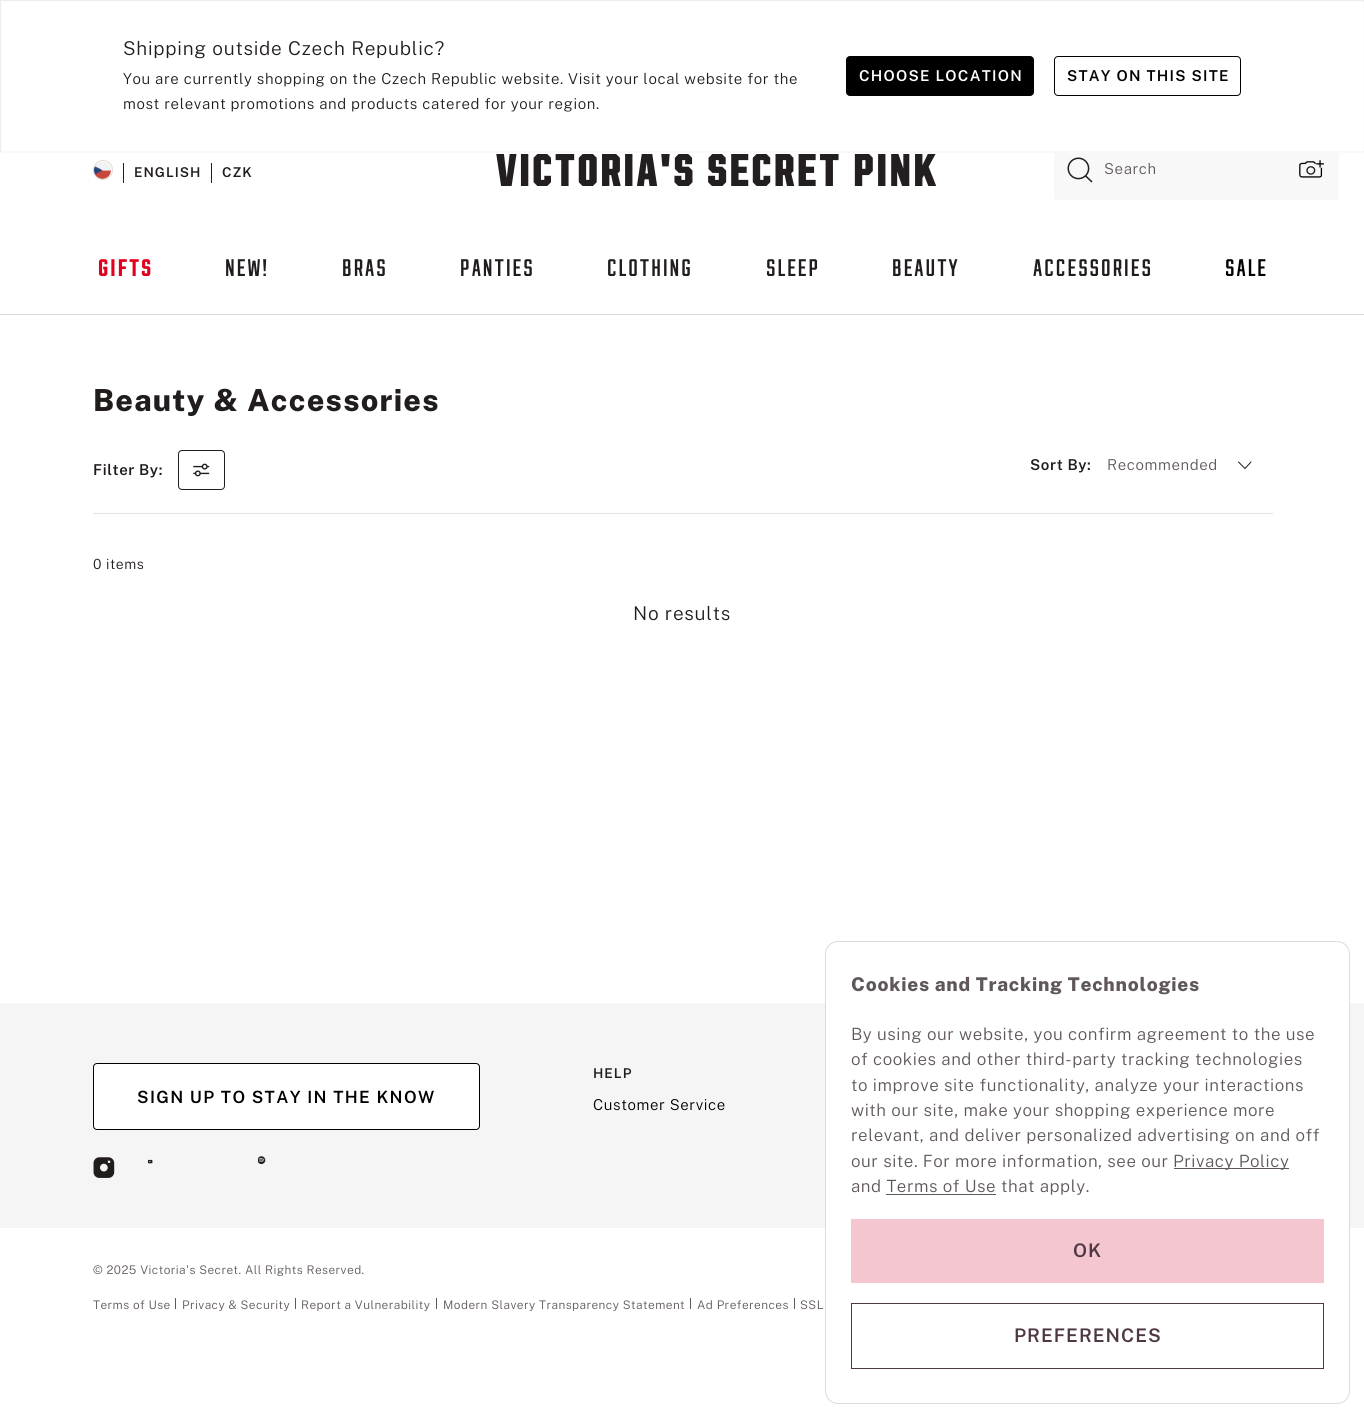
#include <cairo/cairo.h>
#include <math.h>
#include <stddef.h>


static void draw_spaced(cairo_t *cr, double x, double y, const char *s, double letter, double word) {
  cairo_move_to(cr, x, y);
  while (*s) {
    char ch[5] = {0};
    int n = 0;
    do ch[n++] = *s++; while ((*s & 0xC0) == 0x80);
    cairo_show_text(cr, ch);
    cairo_rel_move_to(cr, letter + word * (*ch == ' '), 0);
  }
}

static void rounded_rect(cairo_t *cr, double x, double y, double w, double h, double r) {
  cairo_new_sub_path(cr);
  cairo_arc(cr, x + w - r, y + h - r, r, 0, M_PI / 2);
  cairo_arc(cr, x + r, y + h - r, r, M_PI / 2, M_PI);
  cairo_arc(cr, x + r, y + r, r, M_PI, 1.5 * M_PI);
  cairo_arc(cr, x + w - r, y + r, r, 1.5 * M_PI, 2 * M_PI);
  cairo_close_path(cr);
}

static void draw_image(cairo_t *cr, const char *path, double x, double y, double w, double h) {
  cairo_surface_t *image = cairo_image_surface_create_from_png(path);
  cairo_save(cr);
  cairo_set_source_surface(cr, image, x, y);
  cairo_rectangle(cr, x, y, w, h);
  cairo_fill(cr);
  cairo_restore(cr);
  cairo_surface_destroy(image);
}

static void draw(cairo_t *cr) {
  cairo_set_source_rgb(cr, 1, 1, 1);
  cairo_paint(cr);
  cairo_set_source_rgb(cr, 249 / 255.0, 226 / 255.0, 231 / 255.0);
  cairo_rectangle(cr, 0, 0, 1364, 2);
  cairo_fill(cr);
  cairo_set_source_rgb(cr, 249 / 255.0, 248 / 255.0, 249 / 255.0);
  rounded_rect(cr, 1054, 140, 285, 60, 2.5);
  cairo_fill(cr);
  cairo_set_source_rgb(cr, 1, 1, 1);
  rounded_rect(cr, 0, 0, 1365, 153, 2.5);
  cairo_fill(cr);
  cairo_new_path(cr);
  cairo_move_to(cr, 1364, 151.5);
  cairo_line_to(cr, 1362.5, 152);
  cairo_line_to(cr, 2.5, 152);
  cairo_line_to(cr, 1, 151.5);
  cairo_set_source_rgb(cr, 245 / 255.0, 245 / 255.0, 246 / 255.0);
  cairo_set_line_width(cr, 1.2);
  cairo_stroke(cr);
  cairo_new_path(cr);
  cairo_move_to(cr, 1, 151.5);
  cairo_line_to(cr, 0.5, 150);
  cairo_line_to(cr, 0.5, 2.5);
  cairo_line_to(cr, 1, 1);
  cairo_line_to(cr, 2.5, 0.5);
  cairo_line_to(cr, 1362.5, 0.5);
  cairo_line_to(cr, 1364, 1);
  cairo_line_to(cr, 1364.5, 2.5);
  cairo_line_to(cr, 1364.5, 150);
  cairo_line_to(cr, 1364, 151.5);
  cairo_set_source_rgb(cr, 239 / 255.0, 236 / 255.0, 234 / 255.0);
  cairo_stroke(cr);
  cairo_set_source_rgb(cr, 0, 0, 0);
  rounded_rect(cr, 846.5, 56.5, 187, 39, 3.5);
  cairo_fill_preserve(cr);
  cairo_set_line_width(cr, 1);
  cairo_stroke(cr);
  rounded_rect(cr, 1054.5, 56.5, 186, 39, 3.5);
  cairo_stroke(cr);
  cairo_arc(cr, 103, 170, 9.5, 0, 2 * M_PI);
  cairo_set_source_rgb(cr, 224 / 255.0, 218 / 255.0, 213 / 255.0);
  cairo_stroke(cr);
  draw_image(cr, "images/1.png", 93, 162, 19, 17);
  cairo_set_source_rgb(cr, 34 / 255.0, 29 / 255.0, 29 / 255.0);
  cairo_rectangle(cr, 123, 163, 1, 20);
  cairo_fill(cr);
  cairo_rectangle(cr, 211, 163, 1, 20);
  cairo_fill(cr);
  draw_image(cr, "images/2.png", 496, 154, 440, 32);
  draw_image(cr, "images/3.png", 1067, 157, 26, 26);
  draw_image(cr, "images/4.png", 1299, 160, 25, 18);
  cairo_set_source_rgb(cr, 224 / 255.0, 218 / 255.0, 213 / 255.0);
  cairo_rectangle(cr, 0, 314, 1364, 1);
  cairo_fill(cr);
  cairo_set_source_rgb(cr, 232 / 255.0, 227 / 255.0, 223 / 255.0);
  cairo_rectangle(cr, 93, 513, 1180, 1);
  cairo_fill(cr);
  rounded_rect(cr, 178.5, 450.5, 46, 39, 3.5);
  cairo_set_source_rgb(cr, 34 / 255.0, 29 / 255.0, 29 / 255.0);
  cairo_stroke(cr);
  draw_image(cr, "images/5.png", 193, 463, 17, 14);
  cairo_new_path(cr);
  cairo_move_to(cr, 1251, 462);
  cairo_line_to(cr, 1245, 468.5);
  cairo_line_to(cr, 1238.5, 462);
  cairo_set_line_cap(cr, CAIRO_LINE_CAP_ROUND);
  cairo_stroke(cr);
  cairo_set_source_rgb(cr, 245 / 255.0, 245 / 255.0, 246 / 255.0);
  cairo_rectangle(cr, 0, 1003, 1364, 225);
  cairo_fill(cr);
  cairo_set_source_rgb(cr, 1, 1, 1);
  rounded_rect(cr, 93.5, 1063.5, 386, 66, 3.5);
  cairo_fill_preserve(cr);
  cairo_set_source_rgb(cr, 0, 0, 0);
  cairo_set_line_cap(cr, CAIRO_LINE_CAP_BUTT);
  cairo_stroke(cr);
  draw_image(cr, "images/6.png", 93, 1157, 22, 21);
  draw_image(cr, "images/7.png", 148, 1159, 5, 5);
  draw_image(cr, "images/8.png", 258, 1156, 8, 9);
  cairo_set_source_rgb(cr, 96 / 255.0, 88 / 255.0, 88 / 255.0);
  cairo_rectangle(cr, 175, 1298, 1, 11);
  cairo_fill(cr);
  cairo_rectangle(cr, 295, 1298, 1, 11);
  cairo_fill(cr);
  cairo_rectangle(cr, 436, 1298, 1, 11);
  cairo_fill(cr);
  cairo_rectangle(cr, 690, 1298, 1, 11);
  cairo_fill(cr);
  cairo_rectangle(cr, 794, 1298, 1, 11);
  cairo_fill(cr);
  cairo_set_source_rgb(cr, 1, 1, 1);
  rounded_rect(cr, 825.5, 941.5, 524, 462, 12.5);
  cairo_fill_preserve(cr);
  cairo_set_source_rgb(cr, 224 / 255.0, 218 / 255.0, 213 / 255.0);
  cairo_stroke(cr);
  cairo_set_source_rgb(cr, 96 / 255.0, 88 / 255.0, 88 / 255.0);
  cairo_rectangle(cr, 1174, 1168, 115, 1);
  cairo_fill(cr);
  cairo_rectangle(cr, 886, 1194, 110, 1);
  cairo_fill(cr);
  cairo_set_source_rgb(cr, 244 / 255.0, 198 / 255.0, 207 / 255.0);
  cairo_rectangle(cr, 851, 1219, 473, 64);
  cairo_fill(cr);
  cairo_rectangle(cr, 851.5, 1303.5, 472, 65);
  cairo_set_source_rgb(cr, 78 / 255.0, 56 / 255.0, 68 / 255.0);
  cairo_stroke(cr);
  cairo_select_font_face(cr, "Public Sans Light", CAIRO_FONT_SLANT_NORMAL, CAIRO_FONT_WEIGHT_NORMAL);
  cairo_set_font_size(cr, 19);
  cairo_set_source_rgb(cr, 34 / 255.0, 29 / 255.0, 29 / 255.0);
  draw_spaced(cr, 123, 55, "Shipping outside Czech Republic?", 0.75, 0);
  cairo_set_font_size(cr, 15);
  draw_spaced(cr, 123, 84, "You are currently shopping on the Czech Republic website. Visit your local website for the", 0.6, 0);
  draw_spaced(cr, 123, 109, "most relevant promotions and products catered for your region.", 0.6, 0);
  cairo_select_font_face(cr, "Public Sans SemiBold", CAIRO_FONT_SLANT_NORMAL, CAIRO_FONT_WEIGHT_NORMAL);
  cairo_set_source_rgb(cr, 1, 1, 1);
  draw_spaced(cr, 859, 81, "CHOOSE LOCATION", 1.25, 0);
  cairo_set_source_rgb(cr, 0, 0, 0);
  draw_spaced(cr, 1067, 81, "STAY ON THIS SITE", 1.25, 0);
  cairo_set_font_size(cr, 13.5);
  cairo_set_source_rgb(cr, 34 / 255.0, 29 / 255.0, 29 / 255.0);
  draw_spaced(cr, 134, 177, "ENGLISH", 1, 0);
  draw_spaced(cr, 222, 177, "CZK", 1, 0);
  cairo_select_font_face(cr, "Public Sans Light", CAIRO_FONT_SLANT_NORMAL, CAIRO_FONT_WEIGHT_NORMAL);
  cairo_set_font_size(cr, 15);
  cairo_set_source_rgb(cr, 96 / 255.0, 88 / 255.0, 88 / 255.0);
  draw_spaced(cr, 1104, 174, "Search", 0.6, 0);
  cairo_select_font_face(cr, "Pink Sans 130", CAIRO_FONT_SLANT_NORMAL, CAIRO_FONT_WEIGHT_NORMAL);
  cairo_set_font_size(cr, 24);
  cairo_set_source_rgb(cr, 225 / 255.0, 1 / 255.0, 28 / 255.0);
  draw_spaced(cr, 98, 276, "GIFTS", 2, 0);
  cairo_select_font_face(cr, "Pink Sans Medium", CAIRO_FONT_SLANT_NORMAL, CAIRO_FONT_WEIGHT_NORMAL);
  cairo_set_source_rgb(cr, 34 / 255.0, 29 / 255.0, 29 / 255.0);
  draw_spaced(cr, 225, 276, "NEW!", 2, 0);
  draw_spaced(cr, 342, 276, "BRAS", 2, 0);
  draw_spaced(cr, 460, 276, "PANTIES", 2, 0);
  draw_spaced(cr, 607, 276, "CLOTHING", 2, 0);
  draw_spaced(cr, 766, 276, "SLEEP", 2, 0);
  draw_spaced(cr, 892, 276, "BEAUTY", 2, 0);
  draw_spaced(cr, 1033, 276, "ACCESSORIES", 2, 0);
  cairo_set_source_rgb(cr, 0, 0, 0);
  draw_spaced(cr, 1225, 276, "SALE", 2, 0);
  cairo_select_font_face(cr, "Public Sans ExtraBold", CAIRO_FONT_SLANT_NORMAL, CAIRO_FONT_WEIGHT_NORMAL);
  cairo_set_font_size(cr, 30.4);
  cairo_set_source_rgb(cr, 34 / 255.0, 29 / 255.0, 29 / 255.0);
  draw_spaced(cr, 93, 411, "Beauty & Accessories", 1.25, 0);
  cairo_select_font_face(cr, "Public Sans SemiBold", CAIRO_FONT_SLANT_NORMAL, CAIRO_FONT_WEIGHT_NORMAL);
  cairo_set_font_size(cr, 15);
  draw_spaced(cr, 93, 475, "Filter By:", 0.6, 0);
  draw_spaced(cr, 1030, 470, "Sort By:", 0.6, 0);
  cairo_select_font_face(cr, "Public Sans Light", CAIRO_FONT_SLANT_NORMAL, CAIRO_FONT_WEIGHT_NORMAL);
  cairo_set_source_rgb(cr, 96 / 255.0, 88 / 255.0, 88 / 255.0);
  draw_spaced(cr, 1107, 470, "Recommended", 0.6, 0);
  cairo_set_font_size(cr, 14);
  cairo_set_source_rgb(cr, 34 / 255.0, 29 / 255.0, 29 / 255.0);
  draw_spaced(cr, 93, 569, "0 items", 0.55, 0);
  cairo_set_font_size(cr, 19);
  draw_spaced(cr, 633, 620, "No results", 0.75, 0);
  cairo_select_font_face(cr, "Public Sans SemiBold", CAIRO_FONT_SLANT_NORMAL, CAIRO_FONT_WEIGHT_NORMAL);
  cairo_set_font_size(cr, 16.9);
  cairo_set_source_rgb(cr, 0, 0, 0);
  draw_spaced(cr, 137, 1103, "SIGN UP TO STAY IN THE KNOW", 1.35, 0);
  cairo_set_font_size(cr, 13.5);
  cairo_set_source_rgb(cr, 34 / 255.0, 29 / 255.0, 29 / 255.0);
  draw_spaced(cr, 593, 1078, "HELP", 1, 0);
  cairo_select_font_face(cr, "Public Sans Light", CAIRO_FONT_SLANT_NORMAL, CAIRO_FONT_WEIGHT_NORMAL);
  cairo_set_font_size(cr, 15);
  cairo_set_source_rgb(cr, 0, 0, 0);
  draw_spaced(cr, 593, 1110, "Customer Service", 0.6, 0);
  cairo_set_font_size(cr, 11.85);
  cairo_set_source_rgb(cr, 96 / 255.0, 88 / 255.0, 88 / 255.0);
  draw_spaced(cr, 93, 1274, "© 2025 Victoria's Secret. All Rights Reserved.", 0.45, 0);
  draw_spaced(cr, 93, 1309, "Terms of Use", 0.45, 0);
  draw_spaced(cr, 182, 1309, "Privacy & Security", 0.45, 0);
  draw_spaced(cr, 301, 1309, "Report a Vulnerability", 0.45, 0);
  draw_spaced(cr, 443, 1309, "Modern Slavery Transparency Statement", 0.45, 0);
  draw_spaced(cr, 697, 1309, "Ad Preferences", 0.45, 0);
  draw_spaced(cr, 800, 1309, "SSL", 0.45, 0);
  cairo_select_font_face(cr, "Public Sans ExtraBold", CAIRO_FONT_SLANT_NORMAL, CAIRO_FONT_WEIGHT_NORMAL);
  cairo_set_font_size(cr, 19);
  draw_spaced(cr, 851, 991, "Cookies and Tracking Technologies", 0.75, 0);
  cairo_select_font_face(cr, "Public Sans Light", CAIRO_FONT_SLANT_NORMAL, CAIRO_FONT_WEIGHT_NORMAL);
  cairo_set_font_size(cr, 16.9);
  draw_spaced(cr, 851, 1040, "By using our website, you confirm agreement to the use", 0.55, 0);
  draw_spaced(cr, 851, 1065, "of cookies and other third-party tracking technologies", 0.55, 0);
  draw_spaced(cr, 851, 1091, "to improve site functionality, analyze your interactions", 0.55, 0);
  draw_spaced(cr, 851, 1116, "with our site, make your shopping experience more", 0.55, 0);
  draw_spaced(cr, 851, 1141, "relevant, and deliver personalized advertising on and off", 0.55, 0);
  draw_spaced(cr, 851, 1167, "our site. For more information, see our", 0.55, 0);
  draw_spaced(cr, 1173, 1167, "Privacy Policy", 0.55, 0);
  draw_spaced(cr, 851, 1192, "and Terms of Use that apply.", 0.55, 0);
  cairo_select_font_face(cr, "Public Sans SemiBold", CAIRO_FONT_SLANT_NORMAL, CAIRO_FONT_WEIGHT_NORMAL);
  cairo_set_font_size(cr, 18.75);
  cairo_set_source_rgb(cr, 78 / 255.0, 56 / 255.0, 68 / 255.0);
  draw_spaced(cr, 1073, 1257, "OK", 1, 0);
  draw_spaced(cr, 1014, 1342, "PREFERENCES", 1, 0);
}

int main(void) {
  cairo_surface_t *surface = cairo_image_surface_create(CAIRO_FORMAT_RGB24, 1364, 1418);
  cairo_t *cr = cairo_create(surface);
  cairo_font_options_t *options = cairo_font_options_create();
  cairo_font_options_set_hint_metrics(options, CAIRO_HINT_METRICS_OFF);
  cairo_font_options_set_hint_style(options, CAIRO_HINT_STYLE_NONE);
  cairo_set_font_options(cr, options);
  cairo_set_miter_limit(cr, 4);
  draw(cr);
  cairo_surface_write_to_png(surface, "out.png");
  cairo_font_options_destroy(options);
  cairo_destroy(cr);
  cairo_surface_destroy(surface);
  return 0;
}
